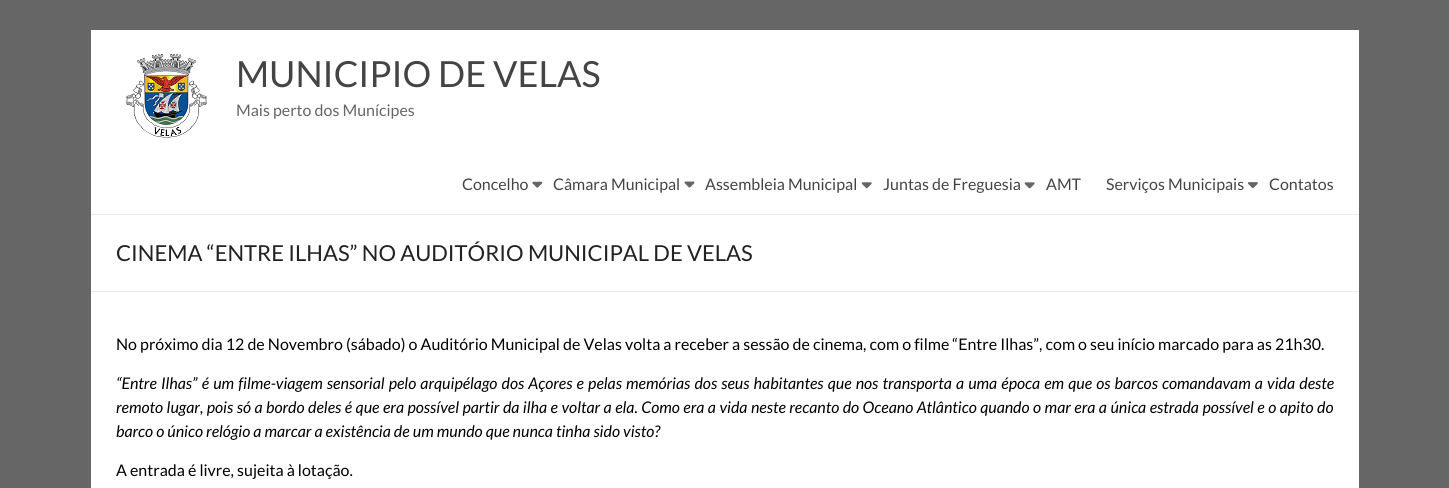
#include <cairo/cairo.h>
#include <math.h>
#include <stddef.h>


static void draw_spaced(cairo_t *cr, double x, double y, const char *s, double letter, double word) {
  cairo_move_to(cr, x, y);
  while (*s) {
    char ch[5] = {0};
    int n = 0;
    do ch[n++] = *s++; while ((*s & 0xC0) == 0x80);
    cairo_show_text(cr, ch);
    cairo_rel_move_to(cr, letter + word * (*ch == ' '), 0);
  }
}

static void draw_image(cairo_t *cr, const char *path, double x, double y, double w, double h) {
  cairo_surface_t *image = cairo_image_surface_create_from_png(path);
  cairo_save(cr);
  cairo_set_source_surface(cr, image, x, y);
  cairo_rectangle(cr, x, y, w, h);
  cairo_fill(cr);
  cairo_restore(cr);
  cairo_surface_destroy(image);
}

static void draw(cairo_t *cr) {
  cairo_set_source_rgb(cr, 102 / 255.0, 102 / 255.0, 102 / 255.0);
  cairo_paint(cr);
  cairo_set_source_rgb(cr, 1, 1, 1);
  cairo_rectangle(cr, 91, 30, 1268, 458);
  cairo_fill(cr);
  cairo_set_source_rgb(cr, 234 / 255.0, 234 / 255.0, 234 / 255.0);
  cairo_rectangle(cr, 91, 214, 1268, 1);
  cairo_fill(cr);
  draw_image(cr, "images/1.png", 126, 54, 81, 84);
  draw_image(cr, "images/2.png", 532, 181, 11, 7);
  draw_image(cr, "images/3.png", 684, 181, 11, 7);
  draw_image(cr, "images/4.png", 861, 182, 11, 7);
  draw_image(cr, "images/5.png", 1024, 182, 11, 7);
  draw_image(cr, "images/6.png", 1247, 182, 11, 7);
  cairo_rectangle(cr, 91, 291, 1268, 1);
  cairo_fill(cr);
  cairo_select_font_face(cr, "Lato", CAIRO_FONT_SLANT_NORMAL, CAIRO_FONT_WEIGHT_NORMAL);
  cairo_set_font_size(cr, 36);
  cairo_set_source_rgb(cr, 68 / 255.0, 68 / 255.0, 68 / 255.0);
  cairo_move_to(cr, 236, 87);
  cairo_show_text(cr, "MUNICIPIO DE VELAS");
  cairo_set_font_size(cr, 16);
  cairo_set_source_rgb(cr, 102 / 255.0, 102 / 255.0, 102 / 255.0);
  cairo_move_to(cr, 236, 116);
  cairo_show_text(cr, "Mais perto dos Munícipes");
  cairo_set_source_rgb(cr, 68 / 255.0, 68 / 255.0, 68 / 255.0);
  cairo_move_to(cr, 462, 190);
  cairo_show_text(cr, "Concelho");
  cairo_move_to(cr, 553, 190);
  cairo_show_text(cr, "Câmara Municipal");
  cairo_move_to(cr, 705, 190);
  cairo_show_text(cr, "Assembleia Municipal");
  cairo_move_to(cr, 883, 190);
  cairo_show_text(cr, "Juntas de Freguesia");
  cairo_move_to(cr, 1046, 190);
  cairo_show_text(cr, "AMT");
  cairo_move_to(cr, 1106, 190);
  cairo_show_text(cr, "Serviços Municipais");
  cairo_move_to(cr, 1269, 190);
  cairo_show_text(cr, "Contatos");
  cairo_set_font_size(cr, 22);
  cairo_set_source_rgb(cr, 34 / 255.0, 34 / 255.0, 34 / 255.0);
  cairo_move_to(cr, 116, 261);
  cairo_show_text(cr, "CINEMA “ENTRE ILHAS” NO AUDITÓRIO MUNICIPAL DE VELAS");
  cairo_set_font_size(cr, 16);
  cairo_set_source_rgb(cr, 0, 0, 0);
  cairo_move_to(cr, 116, 350);
  cairo_show_text(cr, "No próximo dia 12 de Novembro (sábado) o Auditório Municipal de Velas volta a receber a sessão de cinema, com o filme “Entre Ilhas”, com o seu início marcado para as 21h30.");
  cairo_select_font_face(cr, "Lato", CAIRO_FONT_SLANT_ITALIC, CAIRO_FONT_WEIGHT_NORMAL);
  draw_spaced(cr, 116, 389, "“Entre Ilhas” é um filme-viagem sensorial pelo arquipélago dos Açores e pelas memórias dos seus habitantes que nos transporta a uma época em que os barcos comandavam a vida deste", 0, 1.05);
  draw_spaced(cr, 116, 413, "remoto lugar, pois só a bordo deles é que era possível partir da ilha e voltar a ela. Como era a vida neste recanto do Oceano Atlântico quando o mar era a única estrada possível e o apito do", 0, 0.4);
  cairo_move_to(cr, 116, 437);
  cairo_show_text(cr, "barco o único relógio a marcar a existência de um mundo que nunca tinha sido visto?");
  cairo_select_font_face(cr, "Lato", CAIRO_FONT_SLANT_NORMAL, CAIRO_FONT_WEIGHT_NORMAL);
  cairo_move_to(cr, 116, 476);
  cairo_show_text(cr, "A entrada é livre, sujeita à lotação.");
}

int main(void) {
  cairo_surface_t *surface = cairo_image_surface_create(CAIRO_FORMAT_RGB24, 1449, 488);
  cairo_t *cr = cairo_create(surface);
  cairo_font_options_t *options = cairo_font_options_create();
  cairo_font_options_set_hint_metrics(options, CAIRO_HINT_METRICS_OFF);
  cairo_font_options_set_hint_style(options, CAIRO_HINT_STYLE_NONE);
  cairo_set_font_options(cr, options);
  cairo_set_miter_limit(cr, 4);
  draw(cr);
  cairo_surface_write_to_png(surface, "out.png");
  cairo_font_options_destroy(options);
  cairo_destroy(cr);
  cairo_surface_destroy(surface);
  return 0;
}
